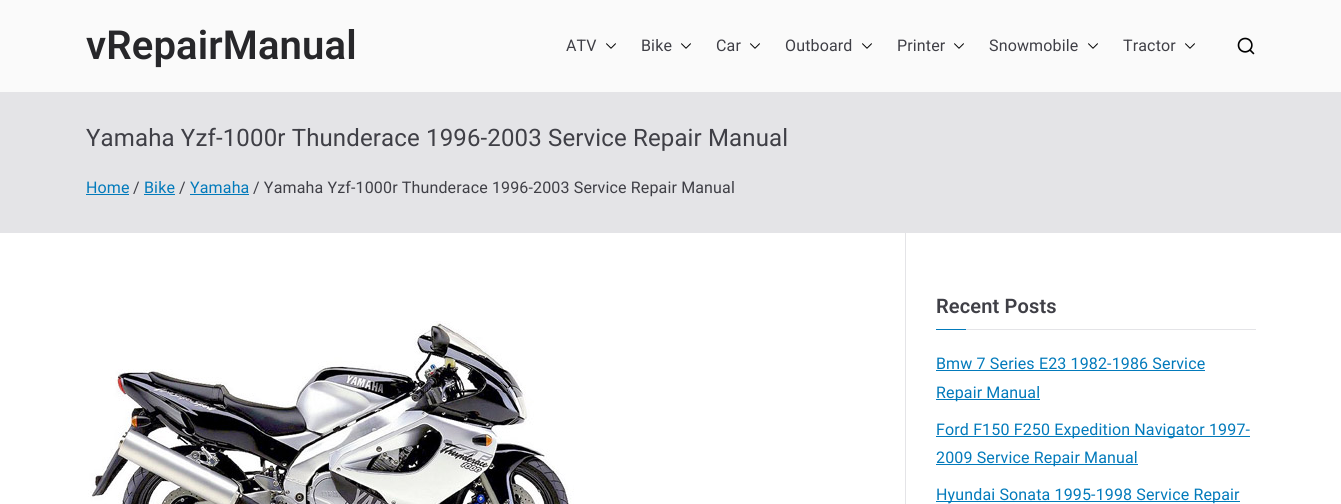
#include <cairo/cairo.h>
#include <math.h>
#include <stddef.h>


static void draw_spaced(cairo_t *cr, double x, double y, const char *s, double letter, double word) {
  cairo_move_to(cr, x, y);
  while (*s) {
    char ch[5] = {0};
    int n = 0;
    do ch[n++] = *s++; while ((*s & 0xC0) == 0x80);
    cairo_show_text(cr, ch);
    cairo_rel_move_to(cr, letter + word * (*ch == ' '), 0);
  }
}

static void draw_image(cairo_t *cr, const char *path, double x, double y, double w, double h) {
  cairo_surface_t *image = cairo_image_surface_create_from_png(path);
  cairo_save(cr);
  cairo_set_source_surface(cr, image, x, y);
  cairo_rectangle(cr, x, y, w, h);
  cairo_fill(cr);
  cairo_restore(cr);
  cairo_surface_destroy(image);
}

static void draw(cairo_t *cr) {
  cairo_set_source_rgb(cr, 250 / 255.0, 250 / 255.0, 250 / 255.0);
  cairo_paint(cr);
  cairo_set_source_rgb(cr, 228 / 255.0, 228 / 255.0, 231 / 255.0);
  cairo_rectangle(cr, 0, 92, 1341, 141);
  cairo_fill(cr);
  draw_image(cr, "images/1.png", 606, 43, 10, 6);
  draw_image(cr, "images/1.png", 681, 43, 10, 6);
  draw_image(cr, "images/1.png", 750, 43, 10, 6);
  draw_image(cr, "images/1.png", 862, 43, 10, 6);
  draw_image(cr, "images/1.png", 954, 43, 10, 6);
  draw_image(cr, "images/1.png", 1088, 43, 10, 6);
  draw_image(cr, "images/1.png", 1185, 43, 10, 6);
  draw_image(cr, "images/2.png", 1237, 37, 18, 18);
  cairo_set_source_rgb(cr, 2 / 255.0, 122 / 255.0, 187 / 255.0);
  cairo_rectangle(cr, 86, 194, 43, 1);
  cairo_fill(cr);
  cairo_rectangle(cr, 144, 194, 31, 1);
  cairo_fill(cr);
  cairo_rectangle(cr, 190, 194, 59, 1);
  cairo_fill(cr);
  cairo_set_source_rgb(cr, 1, 1, 1);
  cairo_rectangle(cr, 0, 233, 1341, 271);
  cairo_fill(cr);
  draw_image(cr, "images/3.png", 88, 321, 486, 183);
  cairo_set_source_rgb(cr, 228 / 255.0, 228 / 255.0, 231 / 255.0);
  cairo_rectangle(cr, 905, 233, 1, 271);
  cairo_fill(cr);
  cairo_rectangle(cr, 966, 329, 290, 1);
  cairo_fill(cr);
  cairo_set_source_rgb(cr, 2 / 255.0, 122 / 255.0, 187 / 255.0);
  cairo_rectangle(cr, 936, 329, 30, 1);
  cairo_fill(cr);
  cairo_rectangle(cr, 936, 370, 269, 1);
  cairo_fill(cr);
  cairo_rectangle(cr, 936, 399, 104, 1);
  cairo_fill(cr);
  cairo_rectangle(cr, 936, 436, 314, 1);
  cairo_fill(cr);
  cairo_rectangle(cr, 936, 464, 202, 1);
  cairo_fill(cr);
  cairo_rectangle(cr, 936, 501, 304, 1);
  cairo_fill(cr);
  cairo_select_font_face(cr, "Roboto SemiBold", CAIRO_FONT_SLANT_NORMAL, CAIRO_FONT_WEIGHT_NORMAL);
  cairo_set_font_size(cr, 40);
  cairo_set_source_rgb(cr, 39 / 255.0, 39 / 255.0, 42 / 255.0);
  draw_spaced(cr, 86, 59, "vRepairManual", 0.15, 0);
  cairo_select_font_face(cr, "Roboto", CAIRO_FONT_SLANT_NORMAL, CAIRO_FONT_WEIGHT_NORMAL);
  cairo_set_font_size(cr, 16);
  cairo_set_source_rgb(cr, 63 / 255.0, 63 / 255.0, 70 / 255.0);
  draw_spaced(cr, 566, 51, "ATV", 0.15, 0);
  draw_spaced(cr, 641, 51, "Bike", 0.15, 0);
  draw_spaced(cr, 716, 51, "Car", 0.15, 0);
  draw_spaced(cr, 785, 51, "Outboard", 0.15, 0);
  draw_spaced(cr, 897, 51, "Printer", 0.15, 0);
  draw_spaced(cr, 989, 51, "Snowmobile", 0.15, 0);
  draw_spaced(cr, 1123, 51, "Tractor", 0.15, 0);
  cairo_set_font_size(cr, 24);
  draw_spaced(cr, 86, 146, "Yamaha Yzf-1000r Thunderace 1996-2003 Service Repair Manual", 0.15, 0);
  cairo_set_font_size(cr, 16);
  cairo_set_source_rgb(cr, 2 / 255.0, 122 / 255.0, 187 / 255.0);
  draw_spaced(cr, 86, 193, "Home", 0.15, 0);
  cairo_set_source_rgb(cr, 63 / 255.0, 63 / 255.0, 70 / 255.0);
  draw_spaced(cr, 133, 193, "/", 0.15, 0);
  cairo_set_source_rgb(cr, 2 / 255.0, 122 / 255.0, 187 / 255.0);
  draw_spaced(cr, 144, 193, "Bike", 0.15, 0);
  cairo_set_source_rgb(cr, 63 / 255.0, 63 / 255.0, 70 / 255.0);
  draw_spaced(cr, 179, 193, "/", 0.15, 0);
  cairo_set_source_rgb(cr, 2 / 255.0, 122 / 255.0, 187 / 255.0);
  draw_spaced(cr, 190, 193, "Yamaha", 0.15, 0);
  cairo_set_source_rgb(cr, 63 / 255.0, 63 / 255.0, 70 / 255.0);
  draw_spaced(cr, 253, 193, "/ Yamaha Yzf-1000r Thunderace 1996-2003 Service Repair Manual", 0.15, 0);
  cairo_select_font_face(cr, "Roboto SemiBold", CAIRO_FONT_SLANT_NORMAL, CAIRO_FONT_WEIGHT_NORMAL);
  cairo_set_font_size(cr, 20);
  draw_spaced(cr, 936, 313, "Recent Posts", 0.15, 0);
  cairo_select_font_face(cr, "Roboto", CAIRO_FONT_SLANT_NORMAL, CAIRO_FONT_WEIGHT_NORMAL);
  cairo_set_font_size(cr, 16);
  cairo_set_source_rgb(cr, 2 / 255.0, 122 / 255.0, 187 / 255.0);
  draw_spaced(cr, 936, 369, "Bmw 7 Series E23 1982-1986 Service", 0.15, 0);
  draw_spaced(cr, 936, 398, "Repair Manual", 0.15, 0);
  draw_spaced(cr, 936, 435, "Ford F150 F250 Expedition Navigator 1997-", 0.15, 0);
  draw_spaced(cr, 936, 463, "2009 Service Repair Manual", 0.15, 0);
  draw_spaced(cr, 936, 500, "Hyundai Sonata 1995-1998 Service Repair", 0.15, 0);
}

int main(void) {
  cairo_surface_t *surface = cairo_image_surface_create(CAIRO_FORMAT_RGB24, 1341, 504);
  cairo_t *cr = cairo_create(surface);
  cairo_font_options_t *options = cairo_font_options_create();
  cairo_font_options_set_hint_metrics(options, CAIRO_HINT_METRICS_OFF);
  cairo_font_options_set_hint_style(options, CAIRO_HINT_STYLE_NONE);
  cairo_set_font_options(cr, options);
  cairo_set_miter_limit(cr, 4);
  draw(cr);
  cairo_surface_write_to_png(surface, "out.png");
  cairo_font_options_destroy(options);
  cairo_destroy(cr);
  cairo_surface_destroy(surface);
  return 0;
}
